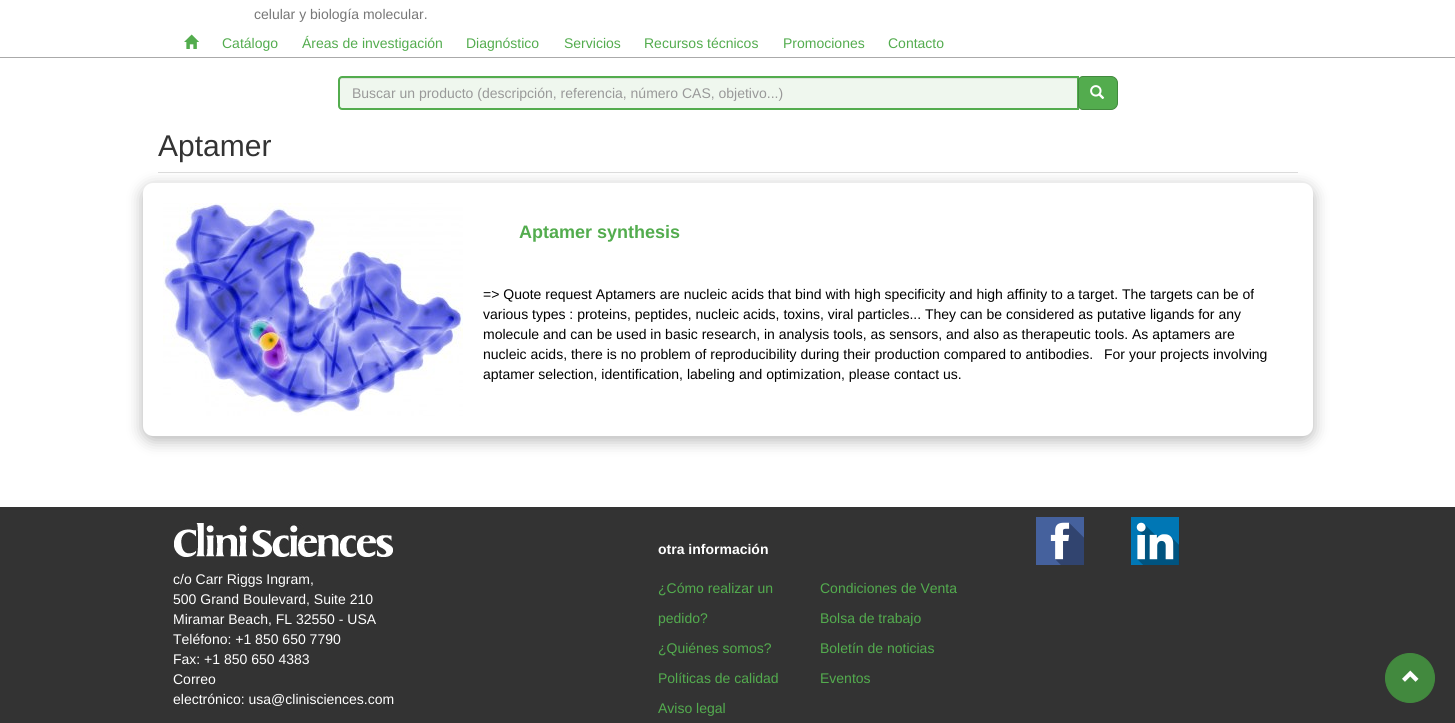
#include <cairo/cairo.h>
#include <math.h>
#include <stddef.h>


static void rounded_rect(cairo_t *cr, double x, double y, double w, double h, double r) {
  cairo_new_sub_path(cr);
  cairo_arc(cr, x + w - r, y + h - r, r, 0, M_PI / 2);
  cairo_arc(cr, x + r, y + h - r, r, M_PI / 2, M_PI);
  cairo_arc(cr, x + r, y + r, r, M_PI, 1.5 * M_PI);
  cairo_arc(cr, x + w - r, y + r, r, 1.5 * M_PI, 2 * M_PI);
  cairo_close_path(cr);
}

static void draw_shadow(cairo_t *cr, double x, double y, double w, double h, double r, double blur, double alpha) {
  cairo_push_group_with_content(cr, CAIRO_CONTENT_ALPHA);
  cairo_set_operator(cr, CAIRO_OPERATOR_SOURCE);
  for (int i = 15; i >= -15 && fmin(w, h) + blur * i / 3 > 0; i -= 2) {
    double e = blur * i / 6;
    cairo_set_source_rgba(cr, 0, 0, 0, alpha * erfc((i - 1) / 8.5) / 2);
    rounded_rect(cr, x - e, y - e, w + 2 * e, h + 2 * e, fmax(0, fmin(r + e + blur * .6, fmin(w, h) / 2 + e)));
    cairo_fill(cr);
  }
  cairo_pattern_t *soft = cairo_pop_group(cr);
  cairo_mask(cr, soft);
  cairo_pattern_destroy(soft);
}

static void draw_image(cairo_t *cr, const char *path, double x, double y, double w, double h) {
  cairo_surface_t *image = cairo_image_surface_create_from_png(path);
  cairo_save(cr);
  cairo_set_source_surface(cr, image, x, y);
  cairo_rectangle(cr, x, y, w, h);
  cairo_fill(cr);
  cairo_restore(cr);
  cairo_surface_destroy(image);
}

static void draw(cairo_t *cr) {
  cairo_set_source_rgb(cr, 1, 1, 1);
  cairo_paint(cr);
  cairo_set_source_rgb(cr, 170 / 255.0, 170 / 255.0, 170 / 255.0);
  cairo_rectangle(cr, 0, 57, 1455, 1);
  cairo_fill(cr);
  draw_image(cr, "images/1.png", 184, 34, 15, 15);
  cairo_set_source_rgb(cr, 239 / 255.0, 247 / 255.0, 238 / 255.0);
  cairo_new_path(cr);
  cairo_move_to(cr, 342, 76);
  cairo_line_to(cr, 1079, 76);
  cairo_line_to(cr, 1079, 110);
  cairo_line_to(cr, 342, 110);
  cairo_curve_to(cr, 340, 110, 338, 108, 338, 106);
  cairo_line_to(cr, 338, 80);
  cairo_curve_to(cr, 338, 78, 340, 76, 342, 76);
  cairo_close_path(cr);
  cairo_fill(cr);
  cairo_set_source_rgb(cr, 221 / 255.0, 228 / 255.0, 220 / 255.0);
  cairo_new_path(cr);
  cairo_move_to(cr, 342, 79);
  cairo_line_to(cr, 1077, 79);
  cairo_line_to(cr, 1077, 78);
  cairo_line_to(cr, 342, 78);
  cairo_curve_to(cr, 340, 78, 340, 80, 340, 81);
  cairo_curve_to(cr, 340, 80, 341, 79, 342, 79);
  cairo_close_path(cr);
  cairo_fill(cr);
  cairo_new_path(cr);
  cairo_move_to(cr, 342, 77);
  cairo_line_to(cr, 1078, 77);
  cairo_line_to(cr, 1078, 109);
  cairo_line_to(cr, 342, 109);
  cairo_curve_to(cr, 340.5, 109, 339, 107.5, 339, 106);
  cairo_line_to(cr, 339, 80);
  cairo_curve_to(cr, 339, 78.5, 340.5, 77, 342, 77);
  cairo_close_path(cr);
  cairo_set_source_rgb(cr, 83 / 255.0, 172 / 255.0, 78 / 255.0);
  cairo_stroke(cr);
  cairo_new_path(cr);
  cairo_move_to(cr, 1083, 76.5);
  cairo_line_to(cr, 1111, 76.5);
  cairo_curve_to(cr, 1114.5, 76.5, 1117.5, 79.5, 1117.5, 83);
  cairo_line_to(cr, 1117.5, 103);
  cairo_curve_to(cr, 1117.5, 106.5, 1114.5, 109.5, 1111, 109.5);
  cairo_line_to(cr, 1083, 109.5);
  cairo_curve_to(cr, 1080.5, 109.5, 1078.5, 107.5, 1078.5, 105);
  cairo_line_to(cr, 1078.5, 81);
  cairo_curve_to(cr, 1078.5, 78.5, 1080.5, 76.5, 1083, 76.5);
  cairo_close_path(cr);
  cairo_fill_preserve(cr);
  cairo_set_source_rgb(cr, 66 / 255.0, 137 / 255.0, 62 / 255.0);
  cairo_set_line_width(cr, 1);
  cairo_stroke(cr);
  draw_image(cr, "images/2.png", 1090, 85, 15, 14);
  cairo_set_source_rgb(cr, 221 / 255.0, 221 / 255.0, 221 / 255.0);
  cairo_rectangle(cr, 158, 172, 1140, 1);
  cairo_fill(cr);
  cairo_set_source_rgb(cr, 0, 0, 0);
  draw_shadow(cr, 143, 187, 1170, 253, 10, 8, 0.3);
  cairo_set_source_rgb(cr, 1, 1, 1);
  rounded_rect(cr, 143, 183, 1170, 253, 10);
  cairo_fill(cr);
  draw_image(cr, "images/3.png", 163, 203, 300, 213);
  cairo_set_source_rgb(cr, 51 / 255.0, 51 / 255.0, 51 / 255.0);
  cairo_rectangle(cr, 0, 507, 1455, 216);
  cairo_fill(cr);
  draw_image(cr, "images/4.png", 174, 523, 219, 34);
  draw_image(cr, "images/5.png", 1036, 517, 48, 48);
  draw_image(cr, "images/6.png", 1131, 517, 48, 48);
  cairo_set_source_rgb(cr, 66 / 255.0, 137 / 255.0, 62 / 255.0);
  cairo_arc(cr, 1410, 678, 24.5, 0, 2 * M_PI);
  cairo_fill_preserve(cr);
  cairo_stroke(cr);
  draw_image(cr, "images/7.png", 1402, 670, 17, 12);
  cairo_select_font_face(cr, "Liberation Sans", CAIRO_FONT_SLANT_NORMAL, CAIRO_FONT_WEIGHT_NORMAL);
  cairo_set_font_size(cr, 14);
  cairo_set_source_rgb(cr, 119 / 255.0, 119 / 255.0, 119 / 255.0);
  cairo_move_to(cr, 254, 19);
  cairo_show_text(cr, "celular y biología molecular.");
  cairo_set_source_rgb(cr, 83 / 255.0, 172 / 255.0, 78 / 255.0);
  cairo_move_to(cr, 222, 48);
  cairo_show_text(cr, "Catálogo");
  cairo_move_to(cr, 302, 48);
  cairo_show_text(cr, "Áreas de investigación");
  cairo_move_to(cr, 466, 48);
  cairo_show_text(cr, "Diagnóstico");
  cairo_move_to(cr, 564, 48);
  cairo_show_text(cr, "Servicios");
  cairo_move_to(cr, 644, 48);
  cairo_show_text(cr, "Recursos técnicos");
  cairo_move_to(cr, 783, 48);
  cairo_show_text(cr, "Promociones");
  cairo_move_to(cr, 888, 48);
  cairo_show_text(cr, "Contacto");
  cairo_set_source_rgb(cr, 153 / 255.0, 153 / 255.0, 153 / 255.0);
  cairo_move_to(cr, 352, 98);
  cairo_show_text(cr, "Buscar un producto (descripción, referencia, número CAS, objetivo...)");
  cairo_set_font_size(cr, 30);
  cairo_set_source_rgb(cr, 51 / 255.0, 51 / 255.0, 51 / 255.0);
  cairo_move_to(cr, 158, 156);
  cairo_show_text(cr, "Aptamer");
  cairo_select_font_face(cr, "Liberation Sans", CAIRO_FONT_SLANT_NORMAL, CAIRO_FONT_WEIGHT_BOLD);
  cairo_set_font_size(cr, 18);
  cairo_set_source_rgb(cr, 83 / 255.0, 172 / 255.0, 78 / 255.0);
  cairo_move_to(cr, 519, 238);
  cairo_show_text(cr, "Aptamer synthesis");
  cairo_select_font_face(cr, "Liberation Sans", CAIRO_FONT_SLANT_NORMAL, CAIRO_FONT_WEIGHT_NORMAL);
  cairo_set_font_size(cr, 14);
  cairo_set_source_rgb(cr, 0, 0, 0);
  cairo_move_to(cr, 483, 299);
  cairo_show_text(cr, "=> Quote request Aptamers are nucleic acids that bind with high specificity and high affinity to a target. The targets can be of");
  cairo_move_to(cr, 483, 319);
  cairo_show_text(cr, "various types : proteins, peptides, nucleic acids, toxins, viral particles... They can be considered as putative ligands for any");
  cairo_move_to(cr, 483, 339);
  cairo_show_text(cr, "molecule and can be used in basic research, in analysis tools, as sensors, and also as therapeutic tools. As aptamers are");
  cairo_move_to(cr, 483, 359);
  cairo_show_text(cr, "nucleic acids, there is no problem of reproducibility during their production compared to antibodies.");
  cairo_move_to(cr, 1104, 359);
  cairo_show_text(cr, "For your projects involving");
  cairo_move_to(cr, 483, 379);
  cairo_show_text(cr, "aptamer selection, identification, labeling and optimization, please contact us.");
  cairo_set_source_rgb(cr, 1, 1, 1);
  cairo_move_to(cr, 173, 584);
  cairo_show_text(cr, "c/o Carr Riggs Ingram,");
  cairo_move_to(cr, 173, 604);
  cairo_show_text(cr, "500 Grand Boulevard, Suite 210");
  cairo_move_to(cr, 173, 624);
  cairo_show_text(cr, "Miramar Beach, FL 32550 - USA");
  cairo_move_to(cr, 173, 644);
  cairo_show_text(cr, "Teléfono: +1 850 650 7790");
  cairo_move_to(cr, 173, 664);
  cairo_show_text(cr, "Fax: +1 850 650 4383");
  cairo_move_to(cr, 173, 684);
  cairo_show_text(cr, "Correo");
  cairo_move_to(cr, 173, 704);
  cairo_show_text(cr, "electrónico: usa@clinisciences.com");
  cairo_select_font_face(cr, "Liberation Sans", CAIRO_FONT_SLANT_NORMAL, CAIRO_FONT_WEIGHT_BOLD);
  cairo_move_to(cr, 658, 554);
  cairo_show_text(cr, "otra información");
  cairo_select_font_face(cr, "Liberation Sans", CAIRO_FONT_SLANT_NORMAL, CAIRO_FONT_WEIGHT_NORMAL);
  cairo_set_source_rgb(cr, 83 / 255.0, 172 / 255.0, 78 / 255.0);
  cairo_move_to(cr, 658, 593);
  cairo_show_text(cr, "¿Cómo realizar un");
  cairo_move_to(cr, 658, 623);
  cairo_show_text(cr, "pedido?");
  cairo_move_to(cr, 820, 593);
  cairo_show_text(cr, "Condiciones de Venta");
  cairo_move_to(cr, 820, 623);
  cairo_show_text(cr, "Bolsa de trabajo");
  cairo_move_to(cr, 658, 653);
  cairo_show_text(cr, "¿Quiénes somos?");
  cairo_move_to(cr, 820, 653);
  cairo_show_text(cr, "Boletín de noticias");
  cairo_move_to(cr, 658, 683);
  cairo_show_text(cr, "Políticas de calidad");
  cairo_move_to(cr, 820, 683);
  cairo_show_text(cr, "Eventos");
  cairo_move_to(cr, 658, 713);
  cairo_show_text(cr, "Aviso legal");
}

int main(void) {
  cairo_surface_t *surface = cairo_image_surface_create(CAIRO_FORMAT_RGB24, 1455, 723);
  cairo_t *cr = cairo_create(surface);
  cairo_font_options_t *options = cairo_font_options_create();
  cairo_font_options_set_hint_metrics(options, CAIRO_HINT_METRICS_OFF);
  cairo_font_options_set_hint_style(options, CAIRO_HINT_STYLE_NONE);
  cairo_set_font_options(cr, options);
  cairo_set_miter_limit(cr, 4);
  draw(cr);
  cairo_surface_write_to_png(surface, "out.png");
  cairo_font_options_destroy(options);
  cairo_destroy(cr);
  cairo_surface_destroy(surface);
  return 0;
}
